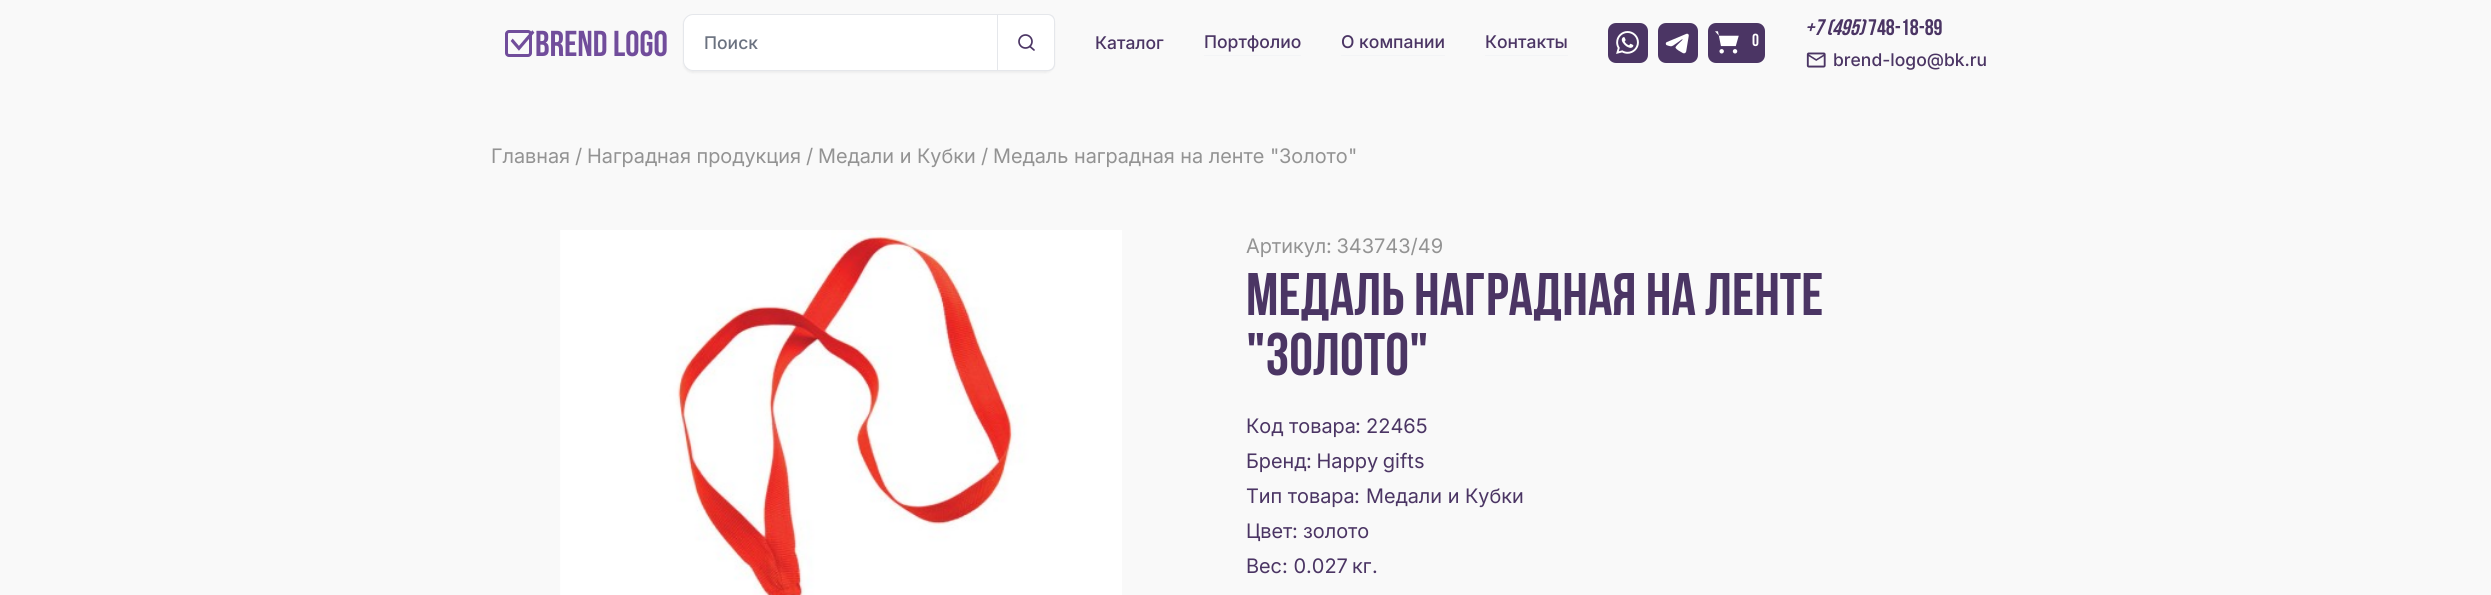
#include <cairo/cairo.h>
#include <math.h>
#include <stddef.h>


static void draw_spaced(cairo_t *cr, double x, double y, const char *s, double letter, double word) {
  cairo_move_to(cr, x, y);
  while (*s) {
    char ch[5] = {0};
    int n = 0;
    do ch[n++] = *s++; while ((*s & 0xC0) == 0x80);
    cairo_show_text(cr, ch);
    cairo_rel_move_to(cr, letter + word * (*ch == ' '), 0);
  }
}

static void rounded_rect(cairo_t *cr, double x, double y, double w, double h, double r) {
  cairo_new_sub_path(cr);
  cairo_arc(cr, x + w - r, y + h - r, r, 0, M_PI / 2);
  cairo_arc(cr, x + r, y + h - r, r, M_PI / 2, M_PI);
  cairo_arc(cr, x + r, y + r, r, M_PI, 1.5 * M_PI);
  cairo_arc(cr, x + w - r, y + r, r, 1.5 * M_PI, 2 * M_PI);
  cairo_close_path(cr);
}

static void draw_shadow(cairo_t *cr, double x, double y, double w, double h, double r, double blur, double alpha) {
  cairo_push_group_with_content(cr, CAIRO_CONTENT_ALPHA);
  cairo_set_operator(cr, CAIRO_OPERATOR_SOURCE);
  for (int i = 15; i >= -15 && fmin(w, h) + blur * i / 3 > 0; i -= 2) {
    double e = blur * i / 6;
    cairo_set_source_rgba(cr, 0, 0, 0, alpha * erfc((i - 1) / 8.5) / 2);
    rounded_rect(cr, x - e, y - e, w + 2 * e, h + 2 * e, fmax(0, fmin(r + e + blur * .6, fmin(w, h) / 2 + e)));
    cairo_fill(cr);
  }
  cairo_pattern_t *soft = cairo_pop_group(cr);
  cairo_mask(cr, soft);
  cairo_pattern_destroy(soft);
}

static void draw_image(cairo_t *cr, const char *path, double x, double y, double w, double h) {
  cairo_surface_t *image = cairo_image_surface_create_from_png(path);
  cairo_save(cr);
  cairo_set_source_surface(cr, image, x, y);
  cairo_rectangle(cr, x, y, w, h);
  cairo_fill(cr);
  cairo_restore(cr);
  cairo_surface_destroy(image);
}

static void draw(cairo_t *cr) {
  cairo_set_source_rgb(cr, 249 / 255.0, 249 / 255.0, 249 / 255.0);
  cairo_paint(cr);
  draw_image(cr, "images/1.png", 505, 30, 162, 27);
  cairo_set_source_rgb(cr, 0, 0, 0);
  draw_shadow(cr, 683, 15, 372, 58, 10, 1, 0.05);
  cairo_set_source_rgb(cr, 1, 1, 1);
  cairo_new_path(cr);
  cairo_move_to(cr, 693, 14.5);
  cairo_line_to(cr, 997.5, 14.5);
  cairo_line_to(cr, 997.5, 70.5);
  cairo_line_to(cr, 693, 70.5);
  cairo_curve_to(cr, 688, 70.5, 683.5, 66, 683.5, 61);
  cairo_line_to(cr, 683.5, 24);
  cairo_curve_to(cr, 683.5, 19, 688, 14.5, 693, 14.5);
  cairo_close_path(cr);
  cairo_fill_preserve(cr);
  cairo_set_source_rgb(cr, 229 / 255.0, 231 / 255.0, 235 / 255.0);
  cairo_set_line_width(cr, 1);
  cairo_stroke(cr);
  cairo_set_source_rgb(cr, 1, 1, 1);
  cairo_new_path(cr);
  cairo_move_to(cr, 998, 15);
  cairo_line_to(cr, 1048, 15);
  cairo_curve_to(cr, 1051.5, 15, 1054, 17.5, 1054, 21);
  cairo_line_to(cr, 1054, 64);
  cairo_curve_to(cr, 1054, 67.5, 1051.5, 70, 1048, 70);
  cairo_line_to(cr, 998, 70);
  cairo_close_path(cr);
  cairo_fill(cr);
  cairo_set_source_rgb(cr, 229 / 255.0, 231 / 255.0, 235 / 255.0);
  cairo_set_fill_rule(cr, CAIRO_FILL_RULE_EVEN_ODD);
  cairo_new_path(cr);
  cairo_move_to(cr, 998, 14);
  cairo_line_to(cr, 1048, 14);
  cairo_curve_to(cr, 1052, 14, 1055, 17, 1055, 21);
  cairo_line_to(cr, 1055, 64);
  cairo_curve_to(cr, 1055, 68, 1052, 71, 1048, 71);
  cairo_line_to(cr, 998, 71);
  cairo_close_path(cr);
  cairo_move_to(cr, 998, 15);
  cairo_line_to(cr, 1048, 15);
  cairo_curve_to(cr, 1051, 15, 1054, 18, 1054, 21);
  cairo_line_to(cr, 1054, 64);
  cairo_curve_to(cr, 1054, 67, 1051, 70, 1048, 70);
  cairo_line_to(cr, 998, 70);
  cairo_close_path(cr);
  cairo_fill(cr);
  cairo_arc(cr, 1025.5, 41.5, 6.5, 0, 2 * M_PI);
  cairo_set_source_rgb(cr, 75 / 255.0, 53 / 255.0, 100 / 255.0);
  cairo_set_line_width(cr, 1.7);
  cairo_stroke(cr);
  cairo_new_path(cr);
  cairo_move_to(cr, 1034, 50);
  cairo_line_to(cr, 1030, 46.5);
  cairo_set_line_cap(cr, CAIRO_LINE_CAP_ROUND);
  cairo_set_line_join(cr, CAIRO_LINE_JOIN_ROUND);
  cairo_stroke(cr);
  cairo_set_source_rgb(cr, 243 / 255.0, 244 / 255.0, 246 / 255.0);
  cairo_rectangle(cr, 1204, 55, 97, 1);
  cairo_fill(cr);
  cairo_rectangle(cr, 1341, 55, 104, 1);
  cairo_fill(cr);
  cairo_rectangle(cr, 1485, 55, 83, 1);
  cairo_fill(cr);
  cairo_set_source_rgb(cr, 75 / 255.0, 53 / 255.0, 100 / 255.0);
  rounded_rect(cr, 1608, 23, 40, 40, 8);
  cairo_fill(cr);
  draw_image(cr, "images/2.png", 1616, 31, 23, 23);
  rounded_rect(cr, 1658, 23, 40, 40, 8);
  cairo_fill(cr);
  draw_image(cr, "images/3.png", 1665, 33, 24, 21);
  rounded_rect(cr, 1708, 23, 57, 40, 8);
  cairo_fill(cr);
  draw_image(cr, "images/4.png", 1715, 31, 24, 23);
  draw_image(cr, "images/5.png", 1806, 52, 20, 16);
  draw_image(cr, "images/6.png", 560, 230, 562, 365);
  cairo_select_font_face(cr, "Inter Medium", CAIRO_FONT_SLANT_NORMAL, CAIRO_FONT_WEIGHT_NORMAL);
  cairo_set_font_size(cr, 17.5);
  cairo_set_source_rgb(cr, 107 / 255.0, 114 / 255.0, 128 / 255.0);
  cairo_move_to(cr, 704, 49);
  cairo_show_text(cr, "Поиск");
  cairo_set_source_rgb(cr, 75 / 255.0, 53 / 255.0, 100 / 255.0);
  cairo_move_to(cr, 1095, 49);
  cairo_show_text(cr, "Каталог");
  cairo_move_to(cr, 1204, 48);
  cairo_show_text(cr, "Портфолио");
  cairo_move_to(cr, 1341, 48);
  cairo_show_text(cr, "О компании");
  cairo_move_to(cr, 1485, 48);
  cairo_show_text(cr, "Контакты");
  cairo_select_font_face(cr, "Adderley", CAIRO_FONT_SLANT_NORMAL, CAIRO_FONT_WEIGHT_BOLD);
  cairo_set_source_rgb(cr, 1, 1, 1);
  cairo_move_to(cr, 1752, 46);
  cairo_show_text(cr, "0");
  cairo_select_font_face(cr, "Adderley", CAIRO_FONT_SLANT_ITALIC, CAIRO_FONT_WEIGHT_BOLD);
  cairo_set_font_size(cr, 22.5);
  cairo_set_source_rgb(cr, 75 / 255.0, 53 / 255.0, 100 / 255.0);
  cairo_move_to(cr, 1805, 35);
  cairo_show_text(cr, "+7 (495)");
  cairo_select_font_face(cr, "Adderley", CAIRO_FONT_SLANT_NORMAL, CAIRO_FONT_WEIGHT_BOLD);
  cairo_move_to(cr, 1868, 35);
  cairo_show_text(cr, "748-18-89");
  cairo_select_font_face(cr, "Inter Medium", CAIRO_FONT_SLANT_NORMAL, CAIRO_FONT_WEIGHT_NORMAL);
  cairo_set_font_size(cr, 17.5);
  cairo_move_to(cr, 1833, 66);
  cairo_show_text(cr, "brend-logo@bk.ru");
  cairo_select_font_face(cr, "Inter", CAIRO_FONT_SLANT_NORMAL, CAIRO_FONT_WEIGHT_NORMAL);
  cairo_set_font_size(cr, 20);
  cairo_set_source_rgb(cr, 147 / 255.0, 147 / 255.0, 147 / 255.0);
  cairo_move_to(cr, 491, 163);
  cairo_show_text(cr, "Главная");
  cairo_select_font_face(cr, "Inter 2", CAIRO_FONT_SLANT_NORMAL, CAIRO_FONT_WEIGHT_NORMAL);
  cairo_move_to(cr, 575, 163);
  cairo_show_text(cr, "/");
  cairo_select_font_face(cr, "Inter", CAIRO_FONT_SLANT_NORMAL, CAIRO_FONT_WEIGHT_NORMAL);
  cairo_move_to(cr, 587, 163);
  cairo_show_text(cr, "Наградная продукция");
  cairo_select_font_face(cr, "Inter 2", CAIRO_FONT_SLANT_NORMAL, CAIRO_FONT_WEIGHT_NORMAL);
  cairo_move_to(cr, 806, 163);
  cairo_show_text(cr, "/");
  cairo_select_font_face(cr, "Inter", CAIRO_FONT_SLANT_NORMAL, CAIRO_FONT_WEIGHT_NORMAL);
  cairo_move_to(cr, 818, 163);
  cairo_show_text(cr, "Медали и Кубки");
  cairo_select_font_face(cr, "Inter 2", CAIRO_FONT_SLANT_NORMAL, CAIRO_FONT_WEIGHT_NORMAL);
  cairo_move_to(cr, 981, 163);
  cairo_show_text(cr, "/");
  cairo_select_font_face(cr, "Inter", CAIRO_FONT_SLANT_NORMAL, CAIRO_FONT_WEIGHT_NORMAL);
  cairo_move_to(cr, 993, 163);
  cairo_show_text(cr, "Медаль наградная на ленте");
  cairo_select_font_face(cr, "Inter 2", CAIRO_FONT_SLANT_NORMAL, CAIRO_FONT_WEIGHT_NORMAL);
  cairo_move_to(cr, 1270, 163);
  cairo_show_text(cr, "\"");
  cairo_select_font_face(cr, "Inter", CAIRO_FONT_SLANT_NORMAL, CAIRO_FONT_WEIGHT_NORMAL);
  cairo_move_to(cr, 1279, 163);
  cairo_show_text(cr, "Золото");
  cairo_select_font_face(cr, "Inter 2", CAIRO_FONT_SLANT_NORMAL, CAIRO_FONT_WEIGHT_NORMAL);
  cairo_move_to(cr, 1348, 163);
  cairo_show_text(cr, "\"");
  cairo_select_font_face(cr, "Inter", CAIRO_FONT_SLANT_NORMAL, CAIRO_FONT_WEIGHT_NORMAL);
  cairo_move_to(cr, 1246, 253);
  cairo_show_text(cr, "Артикул");
  cairo_select_font_face(cr, "Inter 2", CAIRO_FONT_SLANT_NORMAL, CAIRO_FONT_WEIGHT_NORMAL);
  draw_spaced(cr, 1326, 253, ": 343743/49", 0, -1);
  cairo_select_font_face(cr, "Adderley", CAIRO_FONT_SLANT_NORMAL, CAIRO_FONT_WEIGHT_BOLD);
  cairo_set_font_size(cr, 60);
  cairo_set_source_rgb(cr, 75 / 255.0, 53 / 255.0, 100 / 255.0);
  cairo_move_to(cr, 1246, 315);
  cairo_show_text(cr, "МЕДАЛЬ НАГРАДНАЯ НА ЛЕНТЕ");
  cairo_move_to(cr, 1246, 375);
  cairo_show_text(cr, "\"ЗОЛОТО\"");
  cairo_select_font_face(cr, "Inter", CAIRO_FONT_SLANT_NORMAL, CAIRO_FONT_WEIGHT_NORMAL);
  cairo_set_font_size(cr, 20);
  cairo_move_to(cr, 1246, 433);
  cairo_show_text(cr, "Код товара");
  cairo_select_font_face(cr, "Inter 2", CAIRO_FONT_SLANT_NORMAL, CAIRO_FONT_WEIGHT_NORMAL);
  cairo_move_to(cr, 1355, 433);
  cairo_show_text(cr, ":");
  cairo_move_to(cr, 1366, 433);
  cairo_show_text(cr, "22465");
  cairo_select_font_face(cr, "Inter", CAIRO_FONT_SLANT_NORMAL, CAIRO_FONT_WEIGHT_NORMAL);
  cairo_move_to(cr, 1246, 468);
  cairo_show_text(cr, "Бренд");
  cairo_select_font_face(cr, "Inter 2", CAIRO_FONT_SLANT_NORMAL, CAIRO_FONT_WEIGHT_NORMAL);
  draw_spaced(cr, 1306, 468, ": Happy gifts", 0, -1);
  cairo_select_font_face(cr, "Inter", CAIRO_FONT_SLANT_NORMAL, CAIRO_FONT_WEIGHT_NORMAL);
  cairo_move_to(cr, 1246, 503);
  cairo_show_text(cr, "Тип товара");
  cairo_select_font_face(cr, "Inter 2", CAIRO_FONT_SLANT_NORMAL, CAIRO_FONT_WEIGHT_NORMAL);
  cairo_move_to(cr, 1354, 503);
  cairo_show_text(cr, ":");
  cairo_select_font_face(cr, "Inter", CAIRO_FONT_SLANT_NORMAL, CAIRO_FONT_WEIGHT_NORMAL);
  cairo_move_to(cr, 1366, 503);
  cairo_show_text(cr, "Медали и Кубки");
  cairo_move_to(cr, 1246, 538);
  cairo_show_text(cr, "Цвет");
  cairo_select_font_face(cr, "Inter 2", CAIRO_FONT_SLANT_NORMAL, CAIRO_FONT_WEIGHT_NORMAL);
  cairo_move_to(cr, 1292, 538);
  cairo_show_text(cr, ":");
  cairo_select_font_face(cr, "Inter", CAIRO_FONT_SLANT_NORMAL, CAIRO_FONT_WEIGHT_NORMAL);
  cairo_move_to(cr, 1303, 538);
  cairo_show_text(cr, "золото");
  cairo_move_to(cr, 1246, 573);
  cairo_show_text(cr, "Вес");
  cairo_select_font_face(cr, "Inter 2", CAIRO_FONT_SLANT_NORMAL, CAIRO_FONT_WEIGHT_NORMAL);
  cairo_move_to(cr, 1282, 573);
  cairo_show_text(cr, ": 0.027");
  cairo_select_font_face(cr, "Inter", CAIRO_FONT_SLANT_NORMAL, CAIRO_FONT_WEIGHT_NORMAL);
  cairo_move_to(cr, 1352, 573);
  cairo_show_text(cr, "кг");
  cairo_select_font_face(cr, "Inter 2", CAIRO_FONT_SLANT_NORMAL, CAIRO_FONT_WEIGHT_NORMAL);
  cairo_move_to(cr, 1372, 573);
  cairo_show_text(cr, ".");
}

int main(void) {
  cairo_surface_t *surface = cairo_image_surface_create(CAIRO_FORMAT_RGB24, 2491, 595);
  cairo_t *cr = cairo_create(surface);
  cairo_font_options_t *options = cairo_font_options_create();
  cairo_font_options_set_hint_metrics(options, CAIRO_HINT_METRICS_OFF);
  cairo_font_options_set_hint_style(options, CAIRO_HINT_STYLE_NONE);
  cairo_set_font_options(cr, options);
  cairo_set_miter_limit(cr, 4);
  draw(cr);
  cairo_surface_write_to_png(surface, "out.png");
  cairo_font_options_destroy(options);
  cairo_destroy(cr);
  cairo_surface_destroy(surface);
  return 0;
}
